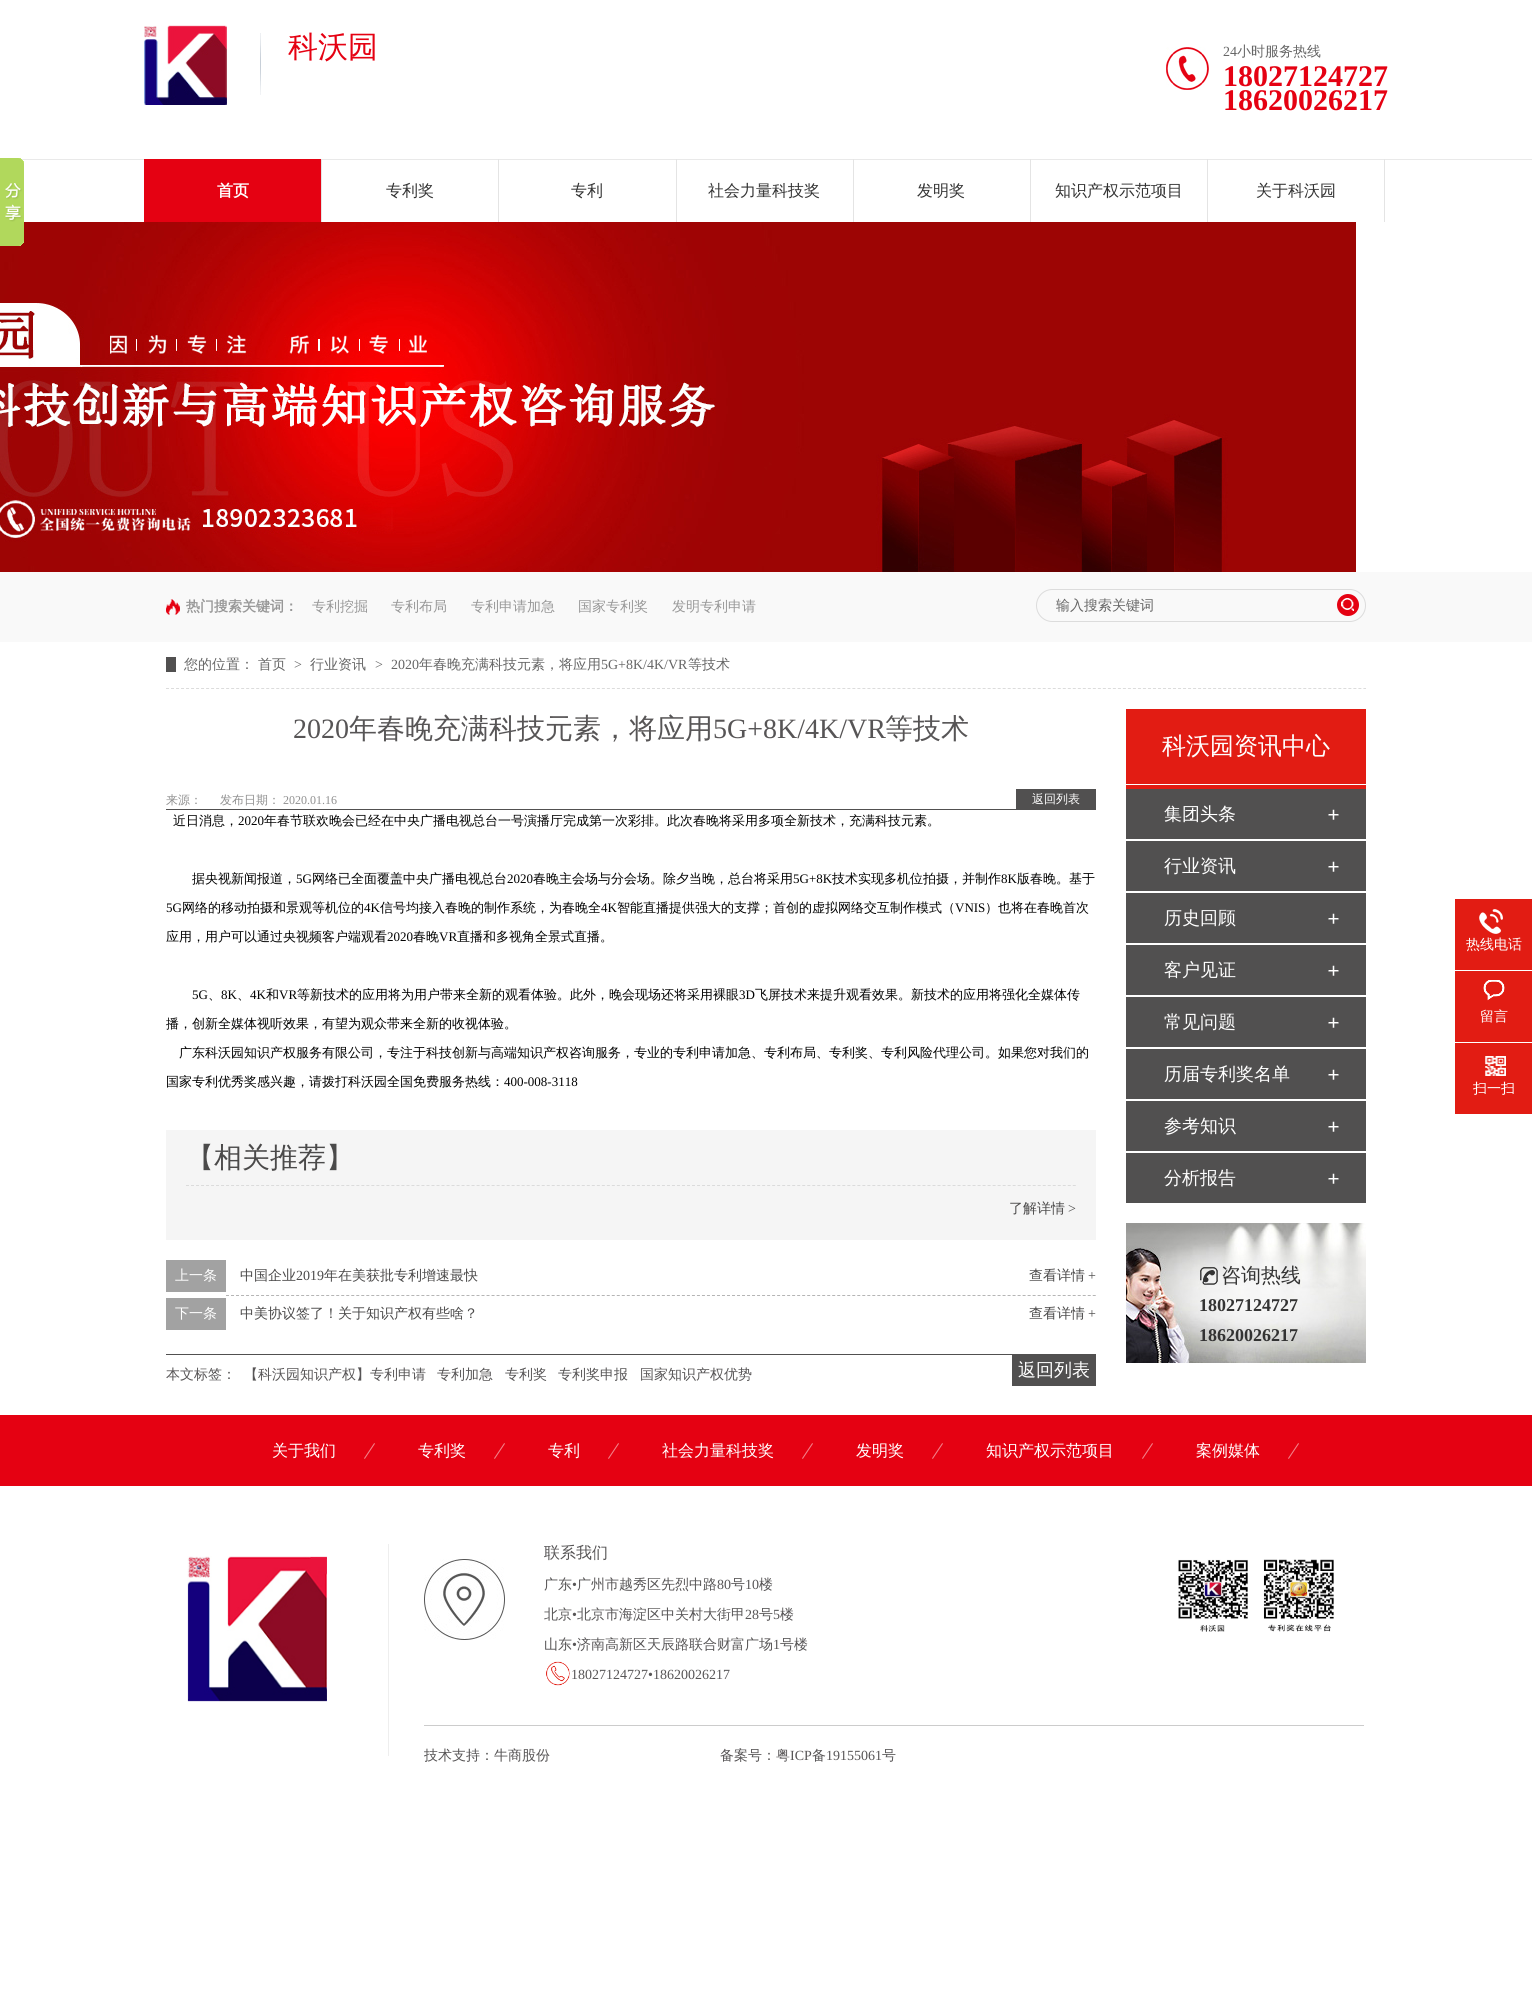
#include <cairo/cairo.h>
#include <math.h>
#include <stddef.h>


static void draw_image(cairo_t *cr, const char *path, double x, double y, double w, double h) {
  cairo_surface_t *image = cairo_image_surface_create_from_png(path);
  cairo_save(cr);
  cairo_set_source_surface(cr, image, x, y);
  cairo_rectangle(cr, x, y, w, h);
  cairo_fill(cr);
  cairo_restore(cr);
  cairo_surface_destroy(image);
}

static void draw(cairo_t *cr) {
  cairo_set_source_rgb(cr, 1, 1, 1);
  cairo_paint(cr);
  cairo_set_source_rgb(cr, 233 / 255.0, 233 / 255.0, 233 / 255.0);
  cairo_rectangle(cr, 22, 159, 1510, 1);
  cairo_fill(cr);
  draw_image(cr, "images/5.png", 0, 222, 1356, 350);
  draw_image(cr, "images/1.png", 0, 158, 24, 88);
  draw_image(cr, "images/2.png", 144, 25, 83, 80);
  draw_image(cr, "images/3.png", 260, 33, 1, 62);
  draw_image(cr, "images/4.png", 1166, 47, 43, 43);
  cairo_set_source_rgb(cr, 228 / 255.0, 228 / 255.0, 228 / 255.0);
  cairo_rectangle(cr, 321, 159, 1, 63);
  cairo_fill(cr);
  cairo_set_source_rgb(cr, 229 / 255.0, 1 / 255.0, 18 / 255.0);
  cairo_rectangle(cr, 144, 159, 177, 63);
  cairo_fill(cr);
  cairo_set_source_rgb(cr, 228 / 255.0, 228 / 255.0, 228 / 255.0);
  cairo_rectangle(cr, 498, 159, 1, 63);
  cairo_fill(cr);
  cairo_rectangle(cr, 676, 159, 1, 63);
  cairo_fill(cr);
  cairo_rectangle(cr, 853, 159, 1, 63);
  cairo_fill(cr);
  cairo_rectangle(cr, 1030, 159, 1, 63);
  cairo_fill(cr);
  cairo_rectangle(cr, 1207, 159, 1, 63);
  cairo_fill(cr);
  cairo_rectangle(cr, 1384, 159, 1, 63);
  cairo_fill(cr);
  cairo_set_source_rgb(cr, 249 / 255.0, 249 / 255.0, 249 / 255.0);
  cairo_rectangle(cr, 0, 572, 1532, 70);
  cairo_fill(cr);
  draw_image(cr, "images/6.png", 166, 599, 14, 16);
  draw_image(cr, "images/7.png", 1036, 589, 301, 33);
  draw_image(cr, "images/8.png", 1337, 589, 29, 33);
  cairo_new_path(cr);
  cairo_move_to(cr, 166, 688.5);
  cairo_line_to(cr, 1366, 688.5);
  cairo_set_source_rgb(cr, 220 / 255.0, 220 / 255.0, 220 / 255.0);
  cairo_set_line_width(cr, 1);
  cairo_set_dash(cr, (double[]){3, 2.01}, 2, 0);
  cairo_stroke(cr);
  cairo_set_source_rgb(cr, 81 / 255.0, 80 / 255.0, 80 / 255.0);
  cairo_rectangle(cr, 166, 657, 10, 15);
  cairo_fill(cr);
  cairo_rectangle(cr, 166, 809, 930, 1);
  cairo_fill(cr);
  cairo_rectangle(cr, 1016, 789, 80, 20);
  cairo_fill(cr);
  cairo_set_source_rgb(cr, 245 / 255.0, 245 / 255.0, 245 / 255.0);
  cairo_rectangle(cr, 166, 1130, 930, 110);
  cairo_fill(cr);
  cairo_new_path(cr);
  cairo_move_to(cr, 186, 1185.5);
  cairo_line_to(cr, 1076, 1185.5);
  cairo_set_source_rgb(cr, 219 / 255.0, 219 / 255.0, 219 / 255.0);
  cairo_stroke(cr);
  cairo_set_source_rgb(cr, 162 / 255.0, 162 / 255.0, 162 / 255.0);
  cairo_rectangle(cr, 166, 1260, 60, 32);
  cairo_fill(cr);
  cairo_new_path(cr);
  cairo_move_to(cr, 226, 1295.5);
  cairo_line_to(cr, 1096, 1295.5);
  cairo_set_source_rgb(cr, 181 / 255.0, 181 / 255.0, 181 / 255.0);
  cairo_stroke(cr);
  cairo_set_source_rgb(cr, 162 / 255.0, 162 / 255.0, 162 / 255.0);
  cairo_rectangle(cr, 166, 1298, 60, 32);
  cairo_fill(cr);
  cairo_set_source_rgb(cr, 81 / 255.0, 80 / 255.0, 80 / 255.0);
  cairo_rectangle(cr, 166, 1354, 846, 1);
  cairo_fill(cr);
  cairo_rectangle(cr, 1012, 1354, 84, 32);
  cairo_fill(cr);
  cairo_set_source_rgb(cr, 226 / 255.0, 28 / 255.0, 19 / 255.0);
  cairo_rectangle(cr, 1126, 709, 240, 80);
  cairo_fill(cr);
  cairo_set_source_rgb(cr, 1, 1, 1);
  cairo_rectangle(cr, 1126, 784, 240, 1);
  cairo_fill(cr);
  cairo_set_source_rgb(cr, 81 / 255.0, 80 / 255.0, 80 / 255.0);
  cairo_rectangle(cr, 1126, 789, 240, 50);
  cairo_fill(cr);
  draw_image(cr, "images/9.png", 1328, 809, 11, 11);
  cairo_rectangle(cr, 1126, 841, 240, 50);
  cairo_fill(cr);
  draw_image(cr, "images/9.png", 1328, 861, 11, 11);
  cairo_rectangle(cr, 1126, 893, 240, 50);
  cairo_fill(cr);
  draw_image(cr, "images/9.png", 1328, 913, 11, 11);
  cairo_rectangle(cr, 1126, 945, 240, 50);
  cairo_fill(cr);
  draw_image(cr, "images/9.png", 1328, 965, 11, 11);
  cairo_rectangle(cr, 1126, 997, 240, 50);
  cairo_fill(cr);
  draw_image(cr, "images/9.png", 1328, 1017, 11, 11);
  cairo_rectangle(cr, 1126, 1049, 240, 50);
  cairo_fill(cr);
  draw_image(cr, "images/9.png", 1328, 1069, 11, 11);
  cairo_rectangle(cr, 1126, 1101, 240, 50);
  cairo_fill(cr);
  draw_image(cr, "images/9.png", 1328, 1121, 11, 11);
  cairo_rectangle(cr, 1126, 1153, 240, 50);
  cairo_fill(cr);
  draw_image(cr, "images/9.png", 1328, 1173, 11, 11);
  draw_image(cr, "images/10.png", 1126, 1223, 240, 140);
  draw_image(cr, "images/11.png", 1200, 1267, 18, 18);
  cairo_set_source_rgb(cr, 226 / 255.0, 28 / 255.0, 19 / 255.0);
  cairo_rectangle(cr, 1455, 899, 77, 71);
  cairo_fill(cr);
  draw_image(cr, "images/12.png", 1479, 909, 24, 25);
  cairo_rectangle(cr, 1455, 971, 77, 71);
  cairo_fill(cr);
  draw_image(cr, "images/13.png", 1483, 980, 22, 21);
  cairo_rectangle(cr, 1455, 1043, 77, 71);
  cairo_fill(cr);
  draw_image(cr, "images/14.png", 1485, 1056, 21, 20);
  cairo_set_source_rgb(cr, 229 / 255.0, 1 / 255.0, 18 / 255.0);
  cairo_rectangle(cr, 0, 1415, 1532, 71);
  cairo_fill(cr);
  draw_image(cr, "images/15.png", 364, 1443, 11, 16);
  draw_image(cr, "images/15.png", 494, 1443, 11, 16);
  draw_image(cr, "images/15.png", 608, 1443, 11, 16);
  draw_image(cr, "images/15.png", 802, 1443, 11, 16);
  draw_image(cr, "images/15.png", 932, 1443, 11, 16);
  draw_image(cr, "images/15.png", 1142, 1443, 11, 16);
  draw_image(cr, "images/15.png", 1288, 1443, 11, 16);
  cairo_set_source_rgb(cr, 238 / 255.0, 238 / 255.0, 238 / 255.0);
  cairo_rectangle(cr, 388, 1544, 1, 212);
  cairo_fill(cr);
  draw_image(cr, "images/16.png", 187, 1556, 140, 146);
  cairo_set_source_rgb(cr, 204 / 255.0, 204 / 255.0, 204 / 255.0);
  cairo_rectangle(cr, 424, 1725, 940, 1);
  cairo_fill(cr);
  draw_image(cr, "images/17.png", 424, 1559, 81, 81);
  draw_image(cr, "images/18.png", 546, 1661, 24, 25);
  draw_image(cr, "images/19.png", 1178, 1559, 156, 73);
  cairo_select_font_face(cr, "WenQuanYi Zen Hei Medium", CAIRO_FONT_SLANT_NORMAL, CAIRO_FONT_WEIGHT_NORMAL);
  cairo_set_font_size(cr, 30);
  cairo_set_source_rgb(cr, 229 / 255.0, 1 / 255.0, 18 / 255.0);
  cairo_move_to(cr, 288, 57);
  cairo_show_text(cr, "科沃园");
  cairo_select_font_face(cr, "Liberation Serif", CAIRO_FONT_SLANT_NORMAL, CAIRO_FONT_WEIGHT_NORMAL);
  cairo_set_font_size(cr, 14);
  cairo_set_source_rgb(cr, 102 / 255.0, 102 / 255.0, 102 / 255.0);
  cairo_move_to(cr, 1223, 56);
  cairo_show_text(cr, "24");
  cairo_select_font_face(cr, "WenQuanYi Zen Hei Medium", CAIRO_FONT_SLANT_NORMAL, CAIRO_FONT_WEIGHT_NORMAL);
  cairo_move_to(cr, 1237, 56);
  cairo_show_text(cr, "小时服务热线");
  cairo_select_font_face(cr, "Liberation Serif", CAIRO_FONT_SLANT_NORMAL, CAIRO_FONT_WEIGHT_BOLD);
  cairo_set_font_size(cr, 30);
  cairo_set_source_rgb(cr, 229 / 255.0, 1 / 255.0, 18 / 255.0);
  cairo_move_to(cr, 1223, 86);
  cairo_show_text(cr, "18027124727");
  cairo_move_to(cr, 1223, 110);
  cairo_show_text(cr, "18620026217");
  cairo_select_font_face(cr, "WenQuanYi Zen Hei", CAIRO_FONT_SLANT_NORMAL, CAIRO_FONT_WEIGHT_BOLD);
  cairo_set_font_size(cr, 16);
  cairo_set_source_rgb(cr, 1, 1, 1);
  cairo_move_to(cr, 217, 196);
  cairo_show_text(cr, "首页");
  cairo_select_font_face(cr, "WenQuanYi Zen Hei Medium", CAIRO_FONT_SLANT_NORMAL, CAIRO_FONT_WEIGHT_NORMAL);
  cairo_set_source_rgb(cr, 51 / 255.0, 51 / 255.0, 51 / 255.0);
  cairo_move_to(cr, 386, 196);
  cairo_show_text(cr, "专利奖");
  cairo_move_to(cr, 571, 196);
  cairo_show_text(cr, "专利");
  cairo_move_to(cr, 708, 196);
  cairo_show_text(cr, "社会力量科技奖");
  cairo_move_to(cr, 917, 196);
  cairo_show_text(cr, "发明奖");
  cairo_move_to(cr, 1055, 196);
  cairo_show_text(cr, "知识产权示范项目");
  cairo_move_to(cr, 1256, 196);
  cairo_show_text(cr, "关于科沃园");
  cairo_select_font_face(cr, "WenQuanYi Zen Hei", CAIRO_FONT_SLANT_NORMAL, CAIRO_FONT_WEIGHT_BOLD);
  cairo_set_font_size(cr, 14);
  cairo_set_source_rgb(cr, 152 / 255.0, 152 / 255.0, 152 / 255.0);
  cairo_move_to(cr, 186, 611);
  cairo_show_text(cr, "热门搜索关键词：");
  cairo_select_font_face(cr, "WenQuanYi Zen Hei Medium", CAIRO_FONT_SLANT_NORMAL, CAIRO_FONT_WEIGHT_NORMAL);
  cairo_move_to(cr, 312, 611);
  cairo_show_text(cr, "专利挖掘");
  cairo_move_to(cr, 391, 611);
  cairo_show_text(cr, "专利布局");
  cairo_move_to(cr, 471, 611);
  cairo_show_text(cr, "专利申请加急");
  cairo_move_to(cr, 578, 611);
  cairo_show_text(cr, "国家专利奖");
  cairo_move_to(cr, 672, 611);
  cairo_show_text(cr, "发明专利申请");
  cairo_set_source_rgb(cr, 102 / 255.0, 102 / 255.0, 102 / 255.0);
  cairo_move_to(cr, 1056, 610);
  cairo_show_text(cr, "输入搜索关键词");
  cairo_move_to(cr, 184, 669);
  cairo_show_text(cr, "您的位置：");
  cairo_move_to(cr, 258, 669);
  cairo_show_text(cr, "首页");
  cairo_select_font_face(cr, "Liberation Serif", CAIRO_FONT_SLANT_NORMAL, CAIRO_FONT_WEIGHT_NORMAL);
  cairo_move_to(cr, 294, 669);
  cairo_show_text(cr, ">");
  cairo_select_font_face(cr, "WenQuanYi Zen Hei Medium", CAIRO_FONT_SLANT_NORMAL, CAIRO_FONT_WEIGHT_NORMAL);
  cairo_move_to(cr, 310, 669);
  cairo_show_text(cr, "行业资讯");
  cairo_select_font_face(cr, "Liberation Serif", CAIRO_FONT_SLANT_NORMAL, CAIRO_FONT_WEIGHT_NORMAL);
  cairo_move_to(cr, 375, 669);
  cairo_show_text(cr, ">");
  cairo_move_to(cr, 391, 669);
  cairo_show_text(cr, "2020");
  cairo_select_font_face(cr, "WenQuanYi Zen Hei Medium", CAIRO_FONT_SLANT_NORMAL, CAIRO_FONT_WEIGHT_NORMAL);
  cairo_move_to(cr, 419, 669);
  cairo_show_text(cr, "年春晚充满科技元素，将应用");
  cairo_select_font_face(cr, "Liberation Serif", CAIRO_FONT_SLANT_NORMAL, CAIRO_FONT_WEIGHT_NORMAL);
  cairo_move_to(cr, 601, 669);
  cairo_show_text(cr, "5G+8K/4K/VR");
  cairo_select_font_face(cr, "WenQuanYi Zen Hei Medium", CAIRO_FONT_SLANT_NORMAL, CAIRO_FONT_WEIGHT_NORMAL);
  cairo_move_to(cr, 688, 669);
  cairo_show_text(cr, "等技术");
  cairo_select_font_face(cr, "Liberation Serif", CAIRO_FONT_SLANT_NORMAL, CAIRO_FONT_WEIGHT_NORMAL);
  cairo_set_font_size(cr, 28);
  cairo_set_source_rgb(cr, 87 / 255.0, 85 / 255.0, 86 / 255.0);
  cairo_move_to(cr, 293, 738);
  cairo_show_text(cr, "2020");
  cairo_select_font_face(cr, "WenQuanYi Zen Hei Medium", CAIRO_FONT_SLANT_NORMAL, CAIRO_FONT_WEIGHT_NORMAL);
  cairo_move_to(cr, 349, 738);
  cairo_show_text(cr, "年春晚充满科技元素，将应用");
  cairo_select_font_face(cr, "Liberation Serif", CAIRO_FONT_SLANT_NORMAL, CAIRO_FONT_WEIGHT_NORMAL);
  cairo_move_to(cr, 713, 738);
  cairo_show_text(cr, "5G+8K/4K/VR");
  cairo_select_font_face(cr, "WenQuanYi Zen Hei Medium", CAIRO_FONT_SLANT_NORMAL, CAIRO_FONT_WEIGHT_NORMAL);
  cairo_move_to(cr, 885, 738);
  cairo_show_text(cr, "等技术");
  cairo_set_font_size(cr, 12);
  cairo_set_source_rgb(cr, 144 / 255.0, 144 / 255.0, 144 / 255.0);
  cairo_move_to(cr, 166, 804);
  cairo_show_text(cr, "来源：");
  cairo_move_to(cr, 220, 804);
  cairo_show_text(cr, "发布日期：");
  cairo_select_font_face(cr, "Liberation Serif", CAIRO_FONT_SLANT_NORMAL, CAIRO_FONT_WEIGHT_NORMAL);
  cairo_move_to(cr, 283, 804);
  cairo_show_text(cr, "2020.01.16");
  cairo_select_font_face(cr, "WenQuanYi Zen Hei Medium", CAIRO_FONT_SLANT_NORMAL, CAIRO_FONT_WEIGHT_NORMAL);
  cairo_set_source_rgb(cr, 1, 1, 1);
  cairo_move_to(cr, 1032, 803);
  cairo_show_text(cr, "返回列表");
  cairo_set_font_size(cr, 13);
  cairo_set_source_rgb(cr, 0, 0, 0);
  cairo_move_to(cr, 173, 825);
  cairo_show_text(cr, "近日消息，");
  cairo_select_font_face(cr, "Liberation Serif", CAIRO_FONT_SLANT_NORMAL, CAIRO_FONT_WEIGHT_NORMAL);
  cairo_move_to(cr, 238, 825);
  cairo_show_text(cr, "2020");
  cairo_select_font_face(cr, "WenQuanYi Zen Hei Medium", CAIRO_FONT_SLANT_NORMAL, CAIRO_FONT_WEIGHT_NORMAL);
  cairo_move_to(cr, 264, 825);
  cairo_show_text(cr, "年春节联欢晚会已经在中央广播电视总台一号演播厅完成第一次彩排。此次春晚将采用多项全新技术，充满科技元素。");
  cairo_move_to(cr, 192, 883);
  cairo_show_text(cr, "据央视新闻报道，");
  cairo_select_font_face(cr, "Liberation Serif", CAIRO_FONT_SLANT_NORMAL, CAIRO_FONT_WEIGHT_NORMAL);
  cairo_move_to(cr, 296, 883);
  cairo_show_text(cr, "5G");
  cairo_select_font_face(cr, "WenQuanYi Zen Hei Medium", CAIRO_FONT_SLANT_NORMAL, CAIRO_FONT_WEIGHT_NORMAL);
  cairo_move_to(cr, 312, 883);
  cairo_show_text(cr, "网络已全面覆盖中央广播电视总台");
  cairo_select_font_face(cr, "Liberation Serif", CAIRO_FONT_SLANT_NORMAL, CAIRO_FONT_WEIGHT_NORMAL);
  cairo_move_to(cr, 507, 883);
  cairo_show_text(cr, "2020");
  cairo_select_font_face(cr, "WenQuanYi Zen Hei Medium", CAIRO_FONT_SLANT_NORMAL, CAIRO_FONT_WEIGHT_NORMAL);
  cairo_move_to(cr, 533, 883);
  cairo_show_text(cr, "春晚主会场与分会场。除夕当晚，总台将采用");
  cairo_select_font_face(cr, "Liberation Serif", CAIRO_FONT_SLANT_NORMAL, CAIRO_FONT_WEIGHT_NORMAL);
  cairo_move_to(cr, 793, 883);
  cairo_show_text(cr, "5G+8K");
  cairo_select_font_face(cr, "WenQuanYi Zen Hei Medium", CAIRO_FONT_SLANT_NORMAL, CAIRO_FONT_WEIGHT_NORMAL);
  cairo_move_to(cr, 832, 883);
  cairo_show_text(cr, "技术实现多机位拍摄，并制作");
  cairo_select_font_face(cr, "Liberation Serif", CAIRO_FONT_SLANT_NORMAL, CAIRO_FONT_WEIGHT_NORMAL);
  cairo_move_to(cr, 1001, 883);
  cairo_show_text(cr, "8K");
  cairo_select_font_face(cr, "WenQuanYi Zen Hei Medium", CAIRO_FONT_SLANT_NORMAL, CAIRO_FONT_WEIGHT_NORMAL);
  cairo_move_to(cr, 1017, 883);
  cairo_show_text(cr, "版春晚。基于");
  cairo_select_font_face(cr, "Liberation Serif", CAIRO_FONT_SLANT_NORMAL, CAIRO_FONT_WEIGHT_NORMAL);
  cairo_move_to(cr, 166, 912);
  cairo_show_text(cr, "5G");
  cairo_select_font_face(cr, "WenQuanYi Zen Hei Medium", CAIRO_FONT_SLANT_NORMAL, CAIRO_FONT_WEIGHT_NORMAL);
  cairo_move_to(cr, 182, 912);
  cairo_show_text(cr, "网络的移动拍摄和景观等机位的");
  cairo_select_font_face(cr, "Liberation Serif", CAIRO_FONT_SLANT_NORMAL, CAIRO_FONT_WEIGHT_NORMAL);
  cairo_move_to(cr, 364, 912);
  cairo_show_text(cr, "4K");
  cairo_select_font_face(cr, "WenQuanYi Zen Hei Medium", CAIRO_FONT_SLANT_NORMAL, CAIRO_FONT_WEIGHT_NORMAL);
  cairo_move_to(cr, 380, 912);
  cairo_show_text(cr, "信号均接入春晚的制作系统，为春晚全");
  cairo_select_font_face(cr, "Liberation Serif", CAIRO_FONT_SLANT_NORMAL, CAIRO_FONT_WEIGHT_NORMAL);
  cairo_move_to(cr, 601, 912);
  cairo_show_text(cr, "4K");
  cairo_select_font_face(cr, "WenQuanYi Zen Hei Medium", CAIRO_FONT_SLANT_NORMAL, CAIRO_FONT_WEIGHT_NORMAL);
  cairo_move_to(cr, 617, 912);
  cairo_show_text(cr, "智能直播提供强大的支撑；首创的虚拟网络交互制作模式（");
  cairo_select_font_face(cr, "Liberation Serif", CAIRO_FONT_SLANT_NORMAL, CAIRO_FONT_WEIGHT_NORMAL);
  cairo_move_to(cr, 955, 912);
  cairo_show_text(cr, "VNIS");
  cairo_select_font_face(cr, "WenQuanYi Zen Hei Medium", CAIRO_FONT_SLANT_NORMAL, CAIRO_FONT_WEIGHT_NORMAL);
  cairo_move_to(cr, 985, 912);
  cairo_show_text(cr, "）也将在春晚首次");
  cairo_move_to(cr, 166, 941);
  cairo_show_text(cr, "应用，用户可以通过央视频客户端观看");
  cairo_select_font_face(cr, "Liberation Serif", CAIRO_FONT_SLANT_NORMAL, CAIRO_FONT_WEIGHT_NORMAL);
  cairo_move_to(cr, 387, 941);
  cairo_show_text(cr, "2020");
  cairo_select_font_face(cr, "WenQuanYi Zen Hei Medium", CAIRO_FONT_SLANT_NORMAL, CAIRO_FONT_WEIGHT_NORMAL);
  cairo_move_to(cr, 413, 941);
  cairo_show_text(cr, "春晚");
  cairo_select_font_face(cr, "Liberation Serif", CAIRO_FONT_SLANT_NORMAL, CAIRO_FONT_WEIGHT_NORMAL);
  cairo_move_to(cr, 439, 941);
  cairo_show_text(cr, "VR");
  cairo_select_font_face(cr, "WenQuanYi Zen Hei Medium", CAIRO_FONT_SLANT_NORMAL, CAIRO_FONT_WEIGHT_NORMAL);
  cairo_move_to(cr, 457, 941);
  cairo_show_text(cr, "直播和多视角全景式直播。");
  cairo_select_font_face(cr, "Liberation Serif", CAIRO_FONT_SLANT_NORMAL, CAIRO_FONT_WEIGHT_NORMAL);
  cairo_move_to(cr, 192, 999);
  cairo_show_text(cr, "5G");
  cairo_select_font_face(cr, "WenQuanYi Zen Hei Medium", CAIRO_FONT_SLANT_NORMAL, CAIRO_FONT_WEIGHT_NORMAL);
  cairo_move_to(cr, 208, 999);
  cairo_show_text(cr, "、");
  cairo_select_font_face(cr, "Liberation Serif", CAIRO_FONT_SLANT_NORMAL, CAIRO_FONT_WEIGHT_NORMAL);
  cairo_move_to(cr, 221, 999);
  cairo_show_text(cr, "8K");
  cairo_select_font_face(cr, "WenQuanYi Zen Hei Medium", CAIRO_FONT_SLANT_NORMAL, CAIRO_FONT_WEIGHT_NORMAL);
  cairo_move_to(cr, 237, 999);
  cairo_show_text(cr, "、");
  cairo_select_font_face(cr, "Liberation Serif", CAIRO_FONT_SLANT_NORMAL, CAIRO_FONT_WEIGHT_NORMAL);
  cairo_move_to(cr, 250, 999);
  cairo_show_text(cr, "4K");
  cairo_select_font_face(cr, "WenQuanYi Zen Hei Medium", CAIRO_FONT_SLANT_NORMAL, CAIRO_FONT_WEIGHT_NORMAL);
  cairo_move_to(cr, 266, 999);
  cairo_show_text(cr, "和");
  cairo_select_font_face(cr, "Liberation Serif", CAIRO_FONT_SLANT_NORMAL, CAIRO_FONT_WEIGHT_NORMAL);
  cairo_move_to(cr, 279, 999);
  cairo_show_text(cr, "VR");
  cairo_select_font_face(cr, "WenQuanYi Zen Hei Medium", CAIRO_FONT_SLANT_NORMAL, CAIRO_FONT_WEIGHT_NORMAL);
  cairo_move_to(cr, 297, 999);
  cairo_show_text(cr, "等新技术的应用将为用户带来全新的观看体验。此外，晚会现场还将采用裸眼");
  cairo_select_font_face(cr, "Liberation Serif", CAIRO_FONT_SLANT_NORMAL, CAIRO_FONT_WEIGHT_NORMAL);
  cairo_move_to(cr, 739, 999);
  cairo_show_text(cr, "3D");
  cairo_select_font_face(cr, "WenQuanYi Zen Hei Medium", CAIRO_FONT_SLANT_NORMAL, CAIRO_FONT_WEIGHT_NORMAL);
  cairo_move_to(cr, 755, 999);
  cairo_show_text(cr, "飞屏技术来提升观看效果。新技术的应用将强化全媒体传");
  cairo_move_to(cr, 166, 1028);
  cairo_show_text(cr, "播，创新全媒体视听效果，有望为观众带来全新的收视体验。");
  cairo_move_to(cr, 179, 1057);
  cairo_show_text(cr, "广东科沃园知识产权服务有限公司，专注于科技创新与高端知识产权咨询服务，专业的专利申请加急、专利布局、专利奖、专利风险代理公司。如果您对我们的");
  cairo_move_to(cr, 166, 1086);
  cairo_show_text(cr, "国家专利优秀奖感兴趣，请拨打科沃园全国免费服务热线：");
  cairo_select_font_face(cr, "Liberation Serif", CAIRO_FONT_SLANT_NORMAL, CAIRO_FONT_WEIGHT_NORMAL);
  cairo_move_to(cr, 504, 1086);
  cairo_show_text(cr, "400-008-3118");
  cairo_select_font_face(cr, "WenQuanYi Zen Hei Medium", CAIRO_FONT_SLANT_NORMAL, CAIRO_FONT_WEIGHT_NORMAL);
  cairo_set_font_size(cr, 28);
  cairo_set_source_rgb(cr, 75 / 255.0, 74 / 255.0, 74 / 255.0);
  cairo_move_to(cr, 186, 1167);
  cairo_show_text(cr, "【相关推荐】");
  cairo_set_font_size(cr, 14);
  cairo_move_to(cr, 1009, 1213);
  cairo_show_text(cr, "了解详情");
  cairo_select_font_face(cr, "Liberation Serif", CAIRO_FONT_SLANT_NORMAL, CAIRO_FONT_WEIGHT_NORMAL);
  cairo_move_to(cr, 1068, 1213);
  cairo_show_text(cr, ">");
  cairo_select_font_face(cr, "WenQuanYi Zen Hei Medium", CAIRO_FONT_SLANT_NORMAL, CAIRO_FONT_WEIGHT_NORMAL);
  cairo_set_source_rgb(cr, 1, 1, 1);
  cairo_move_to(cr, 175, 1280);
  cairo_show_text(cr, "上一条");
  cairo_set_source_rgb(cr, 75 / 255.0, 74 / 255.0, 74 / 255.0);
  cairo_move_to(cr, 240, 1280);
  cairo_show_text(cr, "中国企业");
  cairo_select_font_face(cr, "Liberation Serif", CAIRO_FONT_SLANT_NORMAL, CAIRO_FONT_WEIGHT_NORMAL);
  cairo_move_to(cr, 296, 1280);
  cairo_show_text(cr, "2019");
  cairo_select_font_face(cr, "WenQuanYi Zen Hei Medium", CAIRO_FONT_SLANT_NORMAL, CAIRO_FONT_WEIGHT_NORMAL);
  cairo_move_to(cr, 324, 1280);
  cairo_show_text(cr, "年在美获批专利增速最快");
  cairo_move_to(cr, 1029, 1280);
  cairo_show_text(cr, "查看详情");
  cairo_select_font_face(cr, "Liberation Serif", CAIRO_FONT_SLANT_NORMAL, CAIRO_FONT_WEIGHT_NORMAL);
  cairo_move_to(cr, 1088, 1280);
  cairo_show_text(cr, "+");
  cairo_select_font_face(cr, "WenQuanYi Zen Hei Medium", CAIRO_FONT_SLANT_NORMAL, CAIRO_FONT_WEIGHT_NORMAL);
  cairo_set_source_rgb(cr, 1, 1, 1);
  cairo_move_to(cr, 175, 1318);
  cairo_show_text(cr, "下一条");
  cairo_set_source_rgb(cr, 75 / 255.0, 74 / 255.0, 74 / 255.0);
  cairo_move_to(cr, 240, 1318);
  cairo_show_text(cr, "中美协议签了！关于知识产权有些啥？");
  cairo_move_to(cr, 1029, 1318);
  cairo_show_text(cr, "查看详情");
  cairo_select_font_face(cr, "Liberation Serif", CAIRO_FONT_SLANT_NORMAL, CAIRO_FONT_WEIGHT_NORMAL);
  cairo_move_to(cr, 1088, 1318);
  cairo_show_text(cr, "+");
  cairo_select_font_face(cr, "WenQuanYi Zen Hei Medium", CAIRO_FONT_SLANT_NORMAL, CAIRO_FONT_WEIGHT_NORMAL);
  cairo_set_source_rgb(cr, 87 / 255.0, 85 / 255.0, 86 / 255.0);
  cairo_move_to(cr, 166, 1379);
  cairo_show_text(cr, "本文标签：");
  cairo_move_to(cr, 244, 1379);
  cairo_show_text(cr, "【科沃园知识产权】专利申请");
  cairo_move_to(cr, 437, 1379);
  cairo_show_text(cr, "专利加急");
  cairo_move_to(cr, 505, 1379);
  cairo_show_text(cr, "专利奖");
  cairo_move_to(cr, 558, 1379);
  cairo_show_text(cr, "专利奖申报");
  cairo_move_to(cr, 640, 1379);
  cairo_show_text(cr, "国家知识产权优势");
  cairo_set_font_size(cr, 18);
  cairo_set_source_rgb(cr, 1, 1, 1);
  cairo_move_to(cr, 1018, 1376);
  cairo_show_text(cr, "返回列表");
  cairo_set_font_size(cr, 24);
  cairo_move_to(cr, 1162, 754);
  cairo_show_text(cr, "科沃园资讯中心");
  cairo_set_font_size(cr, 18);
  cairo_move_to(cr, 1164, 820);
  cairo_show_text(cr, "集团头条");
  cairo_move_to(cr, 1164, 872);
  cairo_show_text(cr, "行业资讯");
  cairo_move_to(cr, 1164, 924);
  cairo_show_text(cr, "历史回顾");
  cairo_move_to(cr, 1164, 976);
  cairo_show_text(cr, "客户见证");
  cairo_move_to(cr, 1164, 1028);
  cairo_show_text(cr, "常见问题");
  cairo_move_to(cr, 1164, 1080);
  cairo_show_text(cr, "历届专利奖名单");
  cairo_move_to(cr, 1164, 1132);
  cairo_show_text(cr, "参考知识");
  cairo_move_to(cr, 1164, 1184);
  cairo_show_text(cr, "分析报告");
  cairo_set_font_size(cr, 20);
  cairo_set_source_rgb(cr, 51 / 255.0, 51 / 255.0, 51 / 255.0);
  cairo_move_to(cr, 1221, 1282);
  cairo_show_text(cr, "咨询热线");
  cairo_select_font_face(cr, "Liberation Serif", CAIRO_FONT_SLANT_NORMAL, CAIRO_FONT_WEIGHT_BOLD);
  cairo_set_font_size(cr, 18);
  cairo_move_to(cr, 1199, 1311);
  cairo_show_text(cr, "18027124727");
  cairo_move_to(cr, 1199, 1341);
  cairo_show_text(cr, "18620026217");
  cairo_select_font_face(cr, "WenQuanYi Zen Hei Medium", CAIRO_FONT_SLANT_NORMAL, CAIRO_FONT_WEIGHT_NORMAL);
  cairo_set_font_size(cr, 14);
  cairo_set_source_rgb(cr, 1, 1, 1);
  cairo_move_to(cr, 1466, 949);
  cairo_show_text(cr, "热线电话");
  cairo_move_to(cr, 1480, 1021);
  cairo_show_text(cr, "留言");
  cairo_move_to(cr, 1473, 1093);
  cairo_show_text(cr, "扫一扫");
  cairo_set_font_size(cr, 16);
  cairo_move_to(cr, 272, 1456);
  cairo_show_text(cr, "关于我们");
  cairo_move_to(cr, 418, 1456);
  cairo_show_text(cr, "专利奖");
  cairo_move_to(cr, 548, 1456);
  cairo_show_text(cr, "专利");
  cairo_move_to(cr, 662, 1456);
  cairo_show_text(cr, "社会力量科技奖");
  cairo_move_to(cr, 856, 1456);
  cairo_show_text(cr, "发明奖");
  cairo_move_to(cr, 986, 1456);
  cairo_show_text(cr, "知识产权示范项目");
  cairo_move_to(cr, 1196, 1456);
  cairo_show_text(cr, "案例媒体");
  cairo_set_source_rgb(cr, 87 / 255.0, 85 / 255.0, 86 / 255.0);
  cairo_move_to(cr, 544, 1558);
  cairo_show_text(cr, "联系我们");
  cairo_set_font_size(cr, 14);
  cairo_move_to(cr, 544, 1589);
  cairo_show_text(cr, "广东");
  cairo_select_font_face(cr, "Liberation Serif", CAIRO_FONT_SLANT_NORMAL, CAIRO_FONT_WEIGHT_NORMAL);
  cairo_move_to(cr, 572, 1589);
  cairo_show_text(cr, "•");
  cairo_select_font_face(cr, "WenQuanYi Zen Hei Medium", CAIRO_FONT_SLANT_NORMAL, CAIRO_FONT_WEIGHT_NORMAL);
  cairo_move_to(cr, 577, 1589);
  cairo_show_text(cr, "广州市越秀区先烈中路");
  cairo_select_font_face(cr, "Liberation Serif", CAIRO_FONT_SLANT_NORMAL, CAIRO_FONT_WEIGHT_NORMAL);
  cairo_move_to(cr, 717, 1589);
  cairo_show_text(cr, "80");
  cairo_select_font_face(cr, "WenQuanYi Zen Hei Medium", CAIRO_FONT_SLANT_NORMAL, CAIRO_FONT_WEIGHT_NORMAL);
  cairo_move_to(cr, 731, 1589);
  cairo_show_text(cr, "号");
  cairo_select_font_face(cr, "Liberation Serif", CAIRO_FONT_SLANT_NORMAL, CAIRO_FONT_WEIGHT_NORMAL);
  cairo_move_to(cr, 745, 1589);
  cairo_show_text(cr, "10");
  cairo_select_font_face(cr, "WenQuanYi Zen Hei Medium", CAIRO_FONT_SLANT_NORMAL, CAIRO_FONT_WEIGHT_NORMAL);
  cairo_move_to(cr, 759, 1589);
  cairo_show_text(cr, "楼");
  cairo_move_to(cr, 544, 1619);
  cairo_show_text(cr, "北京");
  cairo_select_font_face(cr, "Liberation Serif", CAIRO_FONT_SLANT_NORMAL, CAIRO_FONT_WEIGHT_NORMAL);
  cairo_move_to(cr, 572, 1619);
  cairo_show_text(cr, "•");
  cairo_select_font_face(cr, "WenQuanYi Zen Hei Medium", CAIRO_FONT_SLANT_NORMAL, CAIRO_FONT_WEIGHT_NORMAL);
  cairo_move_to(cr, 577, 1619);
  cairo_show_text(cr, "北京市海淀区中关村大街甲");
  cairo_select_font_face(cr, "Liberation Serif", CAIRO_FONT_SLANT_NORMAL, CAIRO_FONT_WEIGHT_NORMAL);
  cairo_move_to(cr, 745, 1619);
  cairo_show_text(cr, "28");
  cairo_select_font_face(cr, "WenQuanYi Zen Hei Medium", CAIRO_FONT_SLANT_NORMAL, CAIRO_FONT_WEIGHT_NORMAL);
  cairo_move_to(cr, 759, 1619);
  cairo_show_text(cr, "号");
  cairo_select_font_face(cr, "Liberation Serif", CAIRO_FONT_SLANT_NORMAL, CAIRO_FONT_WEIGHT_NORMAL);
  cairo_move_to(cr, 773, 1619);
  cairo_show_text(cr, "5");
  cairo_select_font_face(cr, "WenQuanYi Zen Hei Medium", CAIRO_FONT_SLANT_NORMAL, CAIRO_FONT_WEIGHT_NORMAL);
  cairo_move_to(cr, 780, 1619);
  cairo_show_text(cr, "楼");
  cairo_move_to(cr, 544, 1649);
  cairo_show_text(cr, "山东");
  cairo_select_font_face(cr, "Liberation Serif", CAIRO_FONT_SLANT_NORMAL, CAIRO_FONT_WEIGHT_NORMAL);
  cairo_move_to(cr, 572, 1649);
  cairo_show_text(cr, "•");
  cairo_select_font_face(cr, "WenQuanYi Zen Hei Medium", CAIRO_FONT_SLANT_NORMAL, CAIRO_FONT_WEIGHT_NORMAL);
  cairo_move_to(cr, 577, 1649);
  cairo_show_text(cr, "济南高新区天辰路联合财富广场");
  cairo_select_font_face(cr, "Liberation Serif", CAIRO_FONT_SLANT_NORMAL, CAIRO_FONT_WEIGHT_NORMAL);
  cairo_move_to(cr, 773, 1649);
  cairo_show_text(cr, "1");
  cairo_select_font_face(cr, "WenQuanYi Zen Hei Medium", CAIRO_FONT_SLANT_NORMAL, CAIRO_FONT_WEIGHT_NORMAL);
  cairo_move_to(cr, 780, 1649);
  cairo_show_text(cr, "号楼");
  cairo_select_font_face(cr, "Liberation Serif", CAIRO_FONT_SLANT_NORMAL, CAIRO_FONT_WEIGHT_NORMAL);
  cairo_move_to(cr, 571, 1679);
  cairo_show_text(cr, "18027124727•18620026217");
  cairo_select_font_face(cr, "WenQuanYi Zen Hei Medium", CAIRO_FONT_SLANT_NORMAL, CAIRO_FONT_WEIGHT_NORMAL);
  cairo_move_to(cr, 424, 1760);
  cairo_show_text(cr, "技术支持：牛商股份");
  cairo_move_to(cr, 720, 1760);
  cairo_show_text(cr, "备案号：粤");
  cairo_select_font_face(cr, "Liberation Serif", CAIRO_FONT_SLANT_NORMAL, CAIRO_FONT_WEIGHT_NORMAL);
  cairo_move_to(cr, 790, 1760);
  cairo_show_text(cr, "ICP");
  cairo_select_font_face(cr, "WenQuanYi Zen Hei Medium", CAIRO_FONT_SLANT_NORMAL, CAIRO_FONT_WEIGHT_NORMAL);
  cairo_move_to(cr, 812, 1760);
  cairo_show_text(cr, "备");
  cairo_select_font_face(cr, "Liberation Serif", CAIRO_FONT_SLANT_NORMAL, CAIRO_FONT_WEIGHT_NORMAL);
  cairo_move_to(cr, 826, 1760);
  cairo_show_text(cr, "19155061");
  cairo_select_font_face(cr, "WenQuanYi Zen Hei Medium", CAIRO_FONT_SLANT_NORMAL, CAIRO_FONT_WEIGHT_NORMAL);
  cairo_move_to(cr, 882, 1760);
  cairo_show_text(cr, "号");
}

int main(void) {
  cairo_surface_t *surface = cairo_image_surface_create(CAIRO_FORMAT_RGB24, 1532, 2011);
  cairo_t *cr = cairo_create(surface);
  cairo_font_options_t *options = cairo_font_options_create();
  cairo_font_options_set_hint_metrics(options, CAIRO_HINT_METRICS_OFF);
  cairo_font_options_set_hint_style(options, CAIRO_HINT_STYLE_NONE);
  cairo_set_font_options(cr, options);
  cairo_set_miter_limit(cr, 4);
  draw(cr);
  cairo_surface_write_to_png(surface, "out.png");
  cairo_font_options_destroy(options);
  cairo_destroy(cr);
  cairo_surface_destroy(surface);
  return 0;
}
